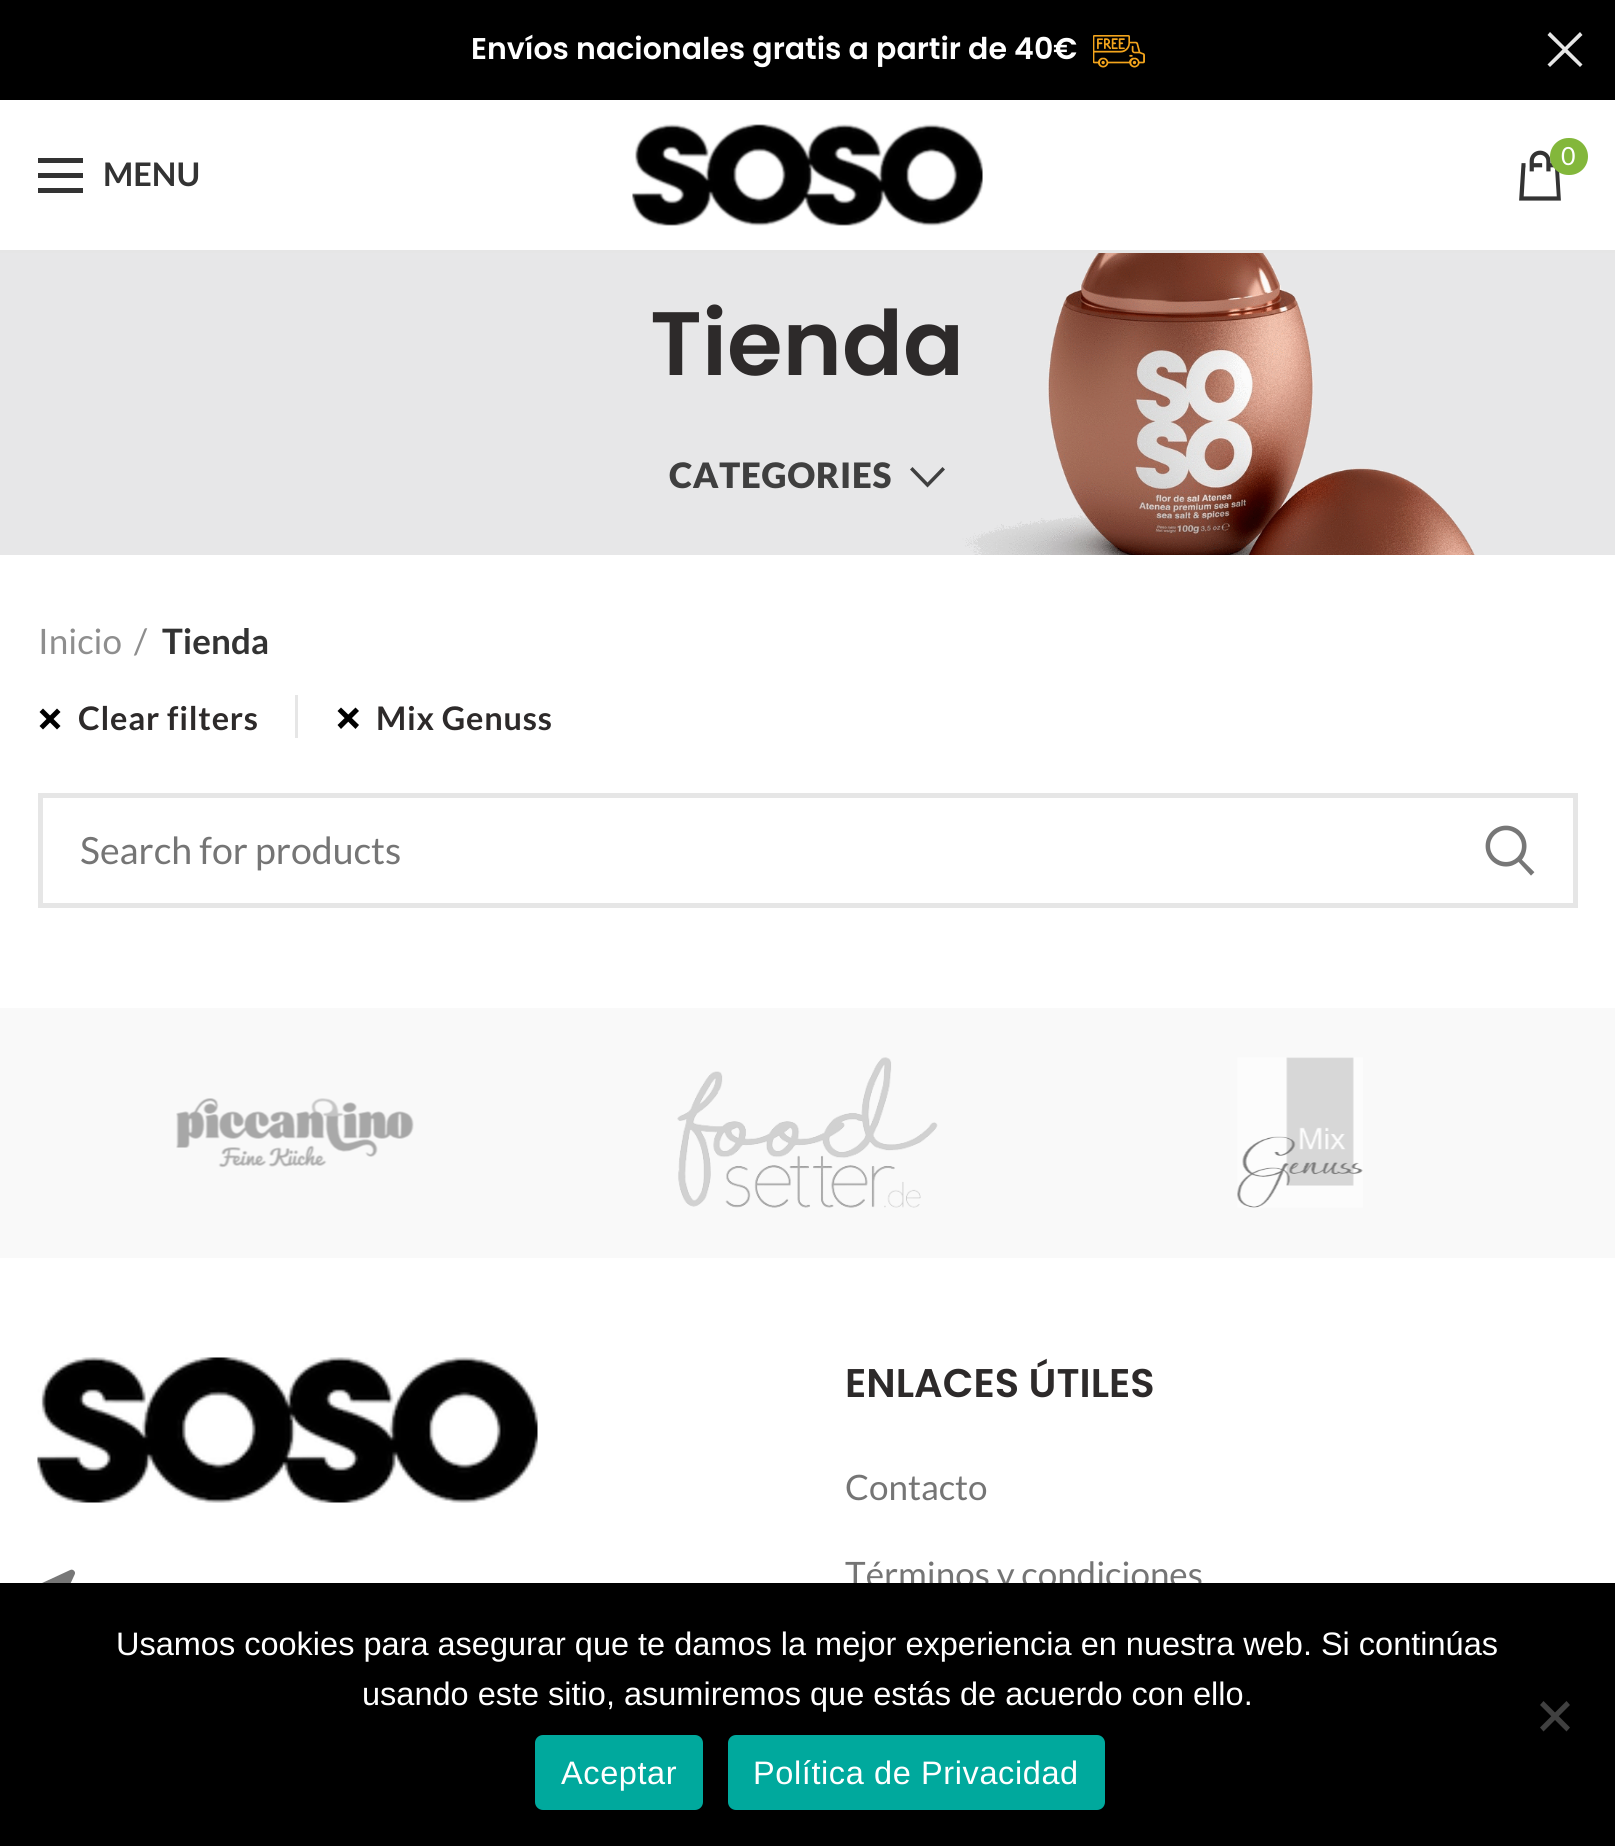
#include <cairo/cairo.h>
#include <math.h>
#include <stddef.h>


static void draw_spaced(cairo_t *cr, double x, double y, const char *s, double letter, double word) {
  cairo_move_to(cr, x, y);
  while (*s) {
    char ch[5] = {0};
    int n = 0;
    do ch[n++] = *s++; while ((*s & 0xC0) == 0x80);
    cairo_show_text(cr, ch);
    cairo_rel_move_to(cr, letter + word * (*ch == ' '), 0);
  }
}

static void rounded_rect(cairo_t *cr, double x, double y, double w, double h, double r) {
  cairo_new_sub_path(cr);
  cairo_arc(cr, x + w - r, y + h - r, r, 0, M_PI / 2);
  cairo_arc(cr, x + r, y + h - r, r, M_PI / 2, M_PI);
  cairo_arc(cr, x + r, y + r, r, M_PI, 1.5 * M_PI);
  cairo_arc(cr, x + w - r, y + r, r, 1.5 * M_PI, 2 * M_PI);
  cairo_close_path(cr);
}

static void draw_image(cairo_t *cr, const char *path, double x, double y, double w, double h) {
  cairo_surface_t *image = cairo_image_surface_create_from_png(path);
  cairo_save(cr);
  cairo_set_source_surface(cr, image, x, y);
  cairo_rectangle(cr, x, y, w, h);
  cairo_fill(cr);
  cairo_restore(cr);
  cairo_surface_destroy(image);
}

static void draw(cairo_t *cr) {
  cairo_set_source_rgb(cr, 1, 1, 1);
  cairo_paint(cr);
  cairo_set_source_rgb(cr, 0, 0, 0);
  cairo_rectangle(cr, 0, 0, 1615, 100);
  cairo_fill(cr);
  draw_image(cr, "images/1.png", 1093, 35, 52, 33);
  cairo_set_source_rgb(cr, 230 / 255.0, 230 / 255.0, 230 / 255.0);
  cairo_new_path(cr);
  cairo_move_to(cr, 1582.5, 35);
  cairo_line_to(cr, 1567.5, 49.5);
  cairo_line_to(cr, 1582.5, 64.5);
  cairo_line_to(cr, 1580, 67);
  cairo_line_to(cr, 1565, 52.5);
  cairo_line_to(cr, 1550, 67);
  cairo_line_to(cr, 1547.5, 64.5);
  cairo_line_to(cr, 1562.5, 49.5);
  cairo_line_to(cr, 1547.5, 35);
  cairo_line_to(cr, 1550, 32);
  cairo_line_to(cr, 1565, 47);
  cairo_line_to(cr, 1580, 32);
  cairo_close_path(cr);
  cairo_fill(cr);
  cairo_rectangle(cr, 0, 250, 1615, 3);
  cairo_fill(cr);
  draw_image(cr, "images/2.png", 632, 124, 351, 102);
  draw_image(cr, "images/3.png", 1519, 150, 42, 51);
  cairo_set_source_rgb(cr, 131 / 255.0, 183 / 255.0, 59 / 255.0);
  rounded_rect(cr, 1550, 138, 38, 37, 18.5);
  cairo_fill(cr);
  cairo_set_source_rgb(cr, 51 / 255.0, 51 / 255.0, 51 / 255.0);
  cairo_rectangle(cr, 38, 173, 45, 5);
  cairo_fill(cr);
  cairo_rectangle(cr, 38, 158, 45, 5);
  cairo_fill(cr);
  cairo_rectangle(cr, 38, 188, 45, 5);
  cairo_fill(cr);
  draw_image(cr, "images/4.png", 0, 253, 1615, 302);
  cairo_set_source_rgb(cr, 63 / 255.0, 63 / 255.0, 63 / 255.0);
  cairo_new_path(cr);
  cairo_move_to(cr, 942.5, 467);
  cairo_line_to(cr, 945, 469.5);
  cairo_line_to(cr, 927.5, 487.5);
  cairo_line_to(cr, 910, 469.5);
  cairo_line_to(cr, 912.5, 467);
  cairo_line_to(cr, 927.5, 482.5);
  cairo_close_path(cr);
  cairo_fill(cr);
  cairo_set_source_rgb(cr, 230 / 255.0, 230 / 255.0, 230 / 255.0);
  cairo_rectangle(cr, 295, 695, 3, 43);
  cairo_fill(cr);
  cairo_set_source_rgb(cr, 0, 0, 0);
  cairo_new_path(cr);
  cairo_move_to(cr, 43, 708.5);
  cairo_line_to(cr, 60.5, 726);
  cairo_line_to(cr, 57, 729.5);
  cairo_line_to(cr, 39.5, 712);
  cairo_close_path(cr);
  cairo_fill(cr);
  cairo_new_path(cr);
  cairo_move_to(cr, 39.5, 726);
  cairo_line_to(cr, 57, 708.5);
  cairo_line_to(cr, 60.5, 712);
  cairo_line_to(cr, 43, 729.5);
  cairo_close_path(cr);
  cairo_fill(cr);
  cairo_new_path(cr);
  cairo_move_to(cr, 341, 707.5);
  cairo_line_to(cr, 359, 725);
  cairo_line_to(cr, 355.5, 729);
  cairo_line_to(cr, 337.5, 711);
  cairo_close_path(cr);
  cairo_fill(cr);
  cairo_new_path(cr);
  cairo_move_to(cr, 337.5, 725);
  cairo_line_to(cr, 355.5, 707.5);
  cairo_line_to(cr, 359, 711);
  cairo_line_to(cr, 341, 729);
  cairo_close_path(cr);
  cairo_fill(cr);
  cairo_rectangle(cr, 40.5, 795.5, 1535, 110);
  cairo_set_source_rgb(cr, 230 / 255.0, 230 / 255.0, 230 / 255.0);
  cairo_set_line_width(cr, 5);
  cairo_stroke(cr);
  draw_image(cr, "images/5.png", 1485, 825, 50, 51);
  cairo_set_source_rgb(cr, 249 / 255.0, 249 / 255.0, 249 / 255.0);
  cairo_rectangle(cr, 0, 1008, 1615, 250);
  cairo_fill(cr);
  draw_image(cr, "images/6.png", 176, 1098, 238, 70);
  draw_image(cr, "images/7.png", 677, 1057, 261, 151);
  draw_image(cr, "images/8.png", 1237, 1057, 126, 151);
  draw_image(cr, "images/9.png", 37, 1357, 501, 146);
  draw_image(cr, "images/10.png", 42, 1569, 33, 14);
  cairo_select_font_face(cr, "Poppins SemiBold", CAIRO_FONT_SLANT_NORMAL, CAIRO_FONT_WEIGHT_NORMAL);
  cairo_set_font_size(cr, 30);
  cairo_set_source_rgb(cr, 1, 1, 1);
  cairo_move_to(cr, 471, 59);
  cairo_show_text(cr, "Envíos nacionales gratis a partir de 40€");
  cairo_select_font_face(cr, "Lato", CAIRO_FONT_SLANT_NORMAL, CAIRO_FONT_WEIGHT_NORMAL);
  cairo_set_font_size(cr, 25);
  cairo_move_to(cr, 1561, 165);
  cairo_show_text(cr, "0");
  cairo_select_font_face(cr, "Lato", CAIRO_FONT_SLANT_NORMAL, CAIRO_FONT_WEIGHT_BOLD);
  cairo_set_font_size(cr, 32.5);
  cairo_set_source_rgb(cr, 51 / 255.0, 51 / 255.0, 51 / 255.0);
  cairo_move_to(cr, 103, 186);
  cairo_show_text(cr, "MENU");
  cairo_select_font_face(cr, "Poppins SemiBold", CAIRO_FONT_SLANT_NORMAL, CAIRO_FONT_WEIGHT_NORMAL);
  cairo_set_font_size(cr, 90);
  cairo_set_source_rgb(cr, 45 / 255.0, 42 / 255.0, 42 / 255.0);
  cairo_move_to(cr, 650, 375);
  cairo_show_text(cr, "Tienda");
  cairo_select_font_face(cr, "Lato Black", CAIRO_FONT_SLANT_NORMAL, CAIRO_FONT_WEIGHT_NORMAL);
  cairo_set_font_size(cr, 35);
  cairo_set_source_rgb(cr, 63 / 255.0, 63 / 255.0, 63 / 255.0);
  draw_spaced(cr, 669, 488, "CATEGORIES", 0.75, 0);
  cairo_select_font_face(cr, "Lato", CAIRO_FONT_SLANT_NORMAL, CAIRO_FONT_WEIGHT_NORMAL);
  cairo_set_source_rgb(cr, 142 / 255.0, 142 / 255.0, 142 / 255.0);
  cairo_move_to(cr, 38, 654);
  cairo_show_text(cr, "Inicio");
  cairo_move_to(cr, 134, 654);
  cairo_show_text(cr, "/");
  cairo_select_font_face(cr, "Lato", CAIRO_FONT_SLANT_NORMAL, CAIRO_FONT_WEIGHT_BOLD);
  cairo_set_source_rgb(cr, 51 / 255.0, 51 / 255.0, 51 / 255.0);
  cairo_move_to(cr, 162, 654);
  cairo_show_text(cr, "Tienda");
  cairo_set_font_size(cr, 32.5);
  cairo_set_source_rgb(cr, 45 / 255.0, 42 / 255.0, 42 / 255.0);
  draw_spaced(cr, 78, 730, "Clear filters", 0.75, 0);
  draw_spaced(cr, 376, 730, "Mix Genuss", 0.75, 0);
  cairo_select_font_face(cr, "Lato", CAIRO_FONT_SLANT_NORMAL, CAIRO_FONT_WEIGHT_NORMAL);
  cairo_set_font_size(cr, 37.5);
  cairo_set_source_rgb(cr, 117 / 255.0, 117 / 255.0, 117 / 255.0);
  cairo_move_to(cr, 80, 864);
  cairo_show_text(cr, "Search for products");
  cairo_select_font_face(cr, "Poppins SemiBold", CAIRO_FONT_SLANT_NORMAL, CAIRO_FONT_WEIGHT_NORMAL);
  cairo_set_font_size(cr, 40);
  cairo_set_source_rgb(cr, 45 / 255.0, 42 / 255.0, 42 / 255.0);
  cairo_move_to(cr, 845, 1397);
  cairo_show_text(cr, "ENLACES ÚTILES");
  cairo_select_font_face(cr, "Lato", CAIRO_FONT_SLANT_NORMAL, CAIRO_FONT_WEIGHT_NORMAL);
  cairo_set_font_size(cr, 35);
  cairo_set_source_rgb(cr, 117 / 255.0, 117 / 255.0, 117 / 255.0);
  cairo_move_to(cr, 845, 1500);
  cairo_show_text(cr, "Contacto");
  cairo_move_to(cr, 845, 1587);
  cairo_show_text(cr, "Términos y condiciones");
  cairo_set_source_rgb(cr, 0, 0, 0);
  cairo_rectangle(cr, 0, 1583, 1615, 263);
  cairo_fill(cr);
  cairo_set_source_rgb(cr, 64 / 255.0, 64 / 255.0, 64 / 255.0);
  cairo_new_path(cr);
  cairo_move_to(cr, 1566.5, 1701);
  cairo_line_to(cr, 1570, 1705);
  cairo_line_to(cr, 1543.5, 1731.5);
  cairo_line_to(cr, 1540, 1727.5);
  cairo_close_path(cr);
  cairo_fill(cr);
  cairo_new_path(cr);
  cairo_move_to(cr, 1540, 1705);
  cairo_line_to(cr, 1543.5, 1701);
  cairo_line_to(cr, 1570, 1727.5);
  cairo_line_to(cr, 1566.5, 1731.5);
  cairo_close_path(cr);
  cairo_fill(cr);
  cairo_set_source_rgb(cr, 0, 169 / 255.0, 157 / 255.0);
  rounded_rect(cr, 728, 1735, 377, 75, 8);
  cairo_fill(cr);
  cairo_select_font_face(cr, "Liberation Sans", CAIRO_FONT_SLANT_NORMAL, CAIRO_FONT_WEIGHT_NORMAL);
  cairo_set_font_size(cr, 32.5);
  cairo_set_source_rgb(cr, 1, 1, 1);
  draw_spaced(cr, 753, 1784, "Política de Privacidad", 0.6, 0);
  cairo_set_source_rgb(cr, 0, 169 / 255.0, 157 / 255.0);
  rounded_rect(cr, 535, 1735, 168, 75, 8);
  cairo_fill(cr);
  cairo_set_source_rgb(cr, 1, 1, 1);
  draw_spaced(cr, 561, 1784, "Aceptar", 0.6, 0);
  cairo_move_to(cr, 362, 1705);
  cairo_show_text(cr, "usando este sitio, asumiremos que estás de acuerdo con ello.");
  cairo_move_to(cr, 116, 1655);
  cairo_show_text(cr, "Usamos cookies para asegurar que te damos la mejor experiencia en nuestra web. Si continúas");
}

int main(void) {
  cairo_surface_t *surface = cairo_image_surface_create(CAIRO_FORMAT_RGB24, 1615, 1846);
  cairo_t *cr = cairo_create(surface);
  cairo_font_options_t *options = cairo_font_options_create();
  cairo_font_options_set_hint_metrics(options, CAIRO_HINT_METRICS_OFF);
  cairo_font_options_set_hint_style(options, CAIRO_HINT_STYLE_NONE);
  cairo_set_font_options(cr, options);
  cairo_set_miter_limit(cr, 4);
  draw(cr);
  cairo_surface_write_to_png(surface, "out.png");
  cairo_font_options_destroy(options);
  cairo_destroy(cr);
  cairo_surface_destroy(surface);
  return 0;
}
